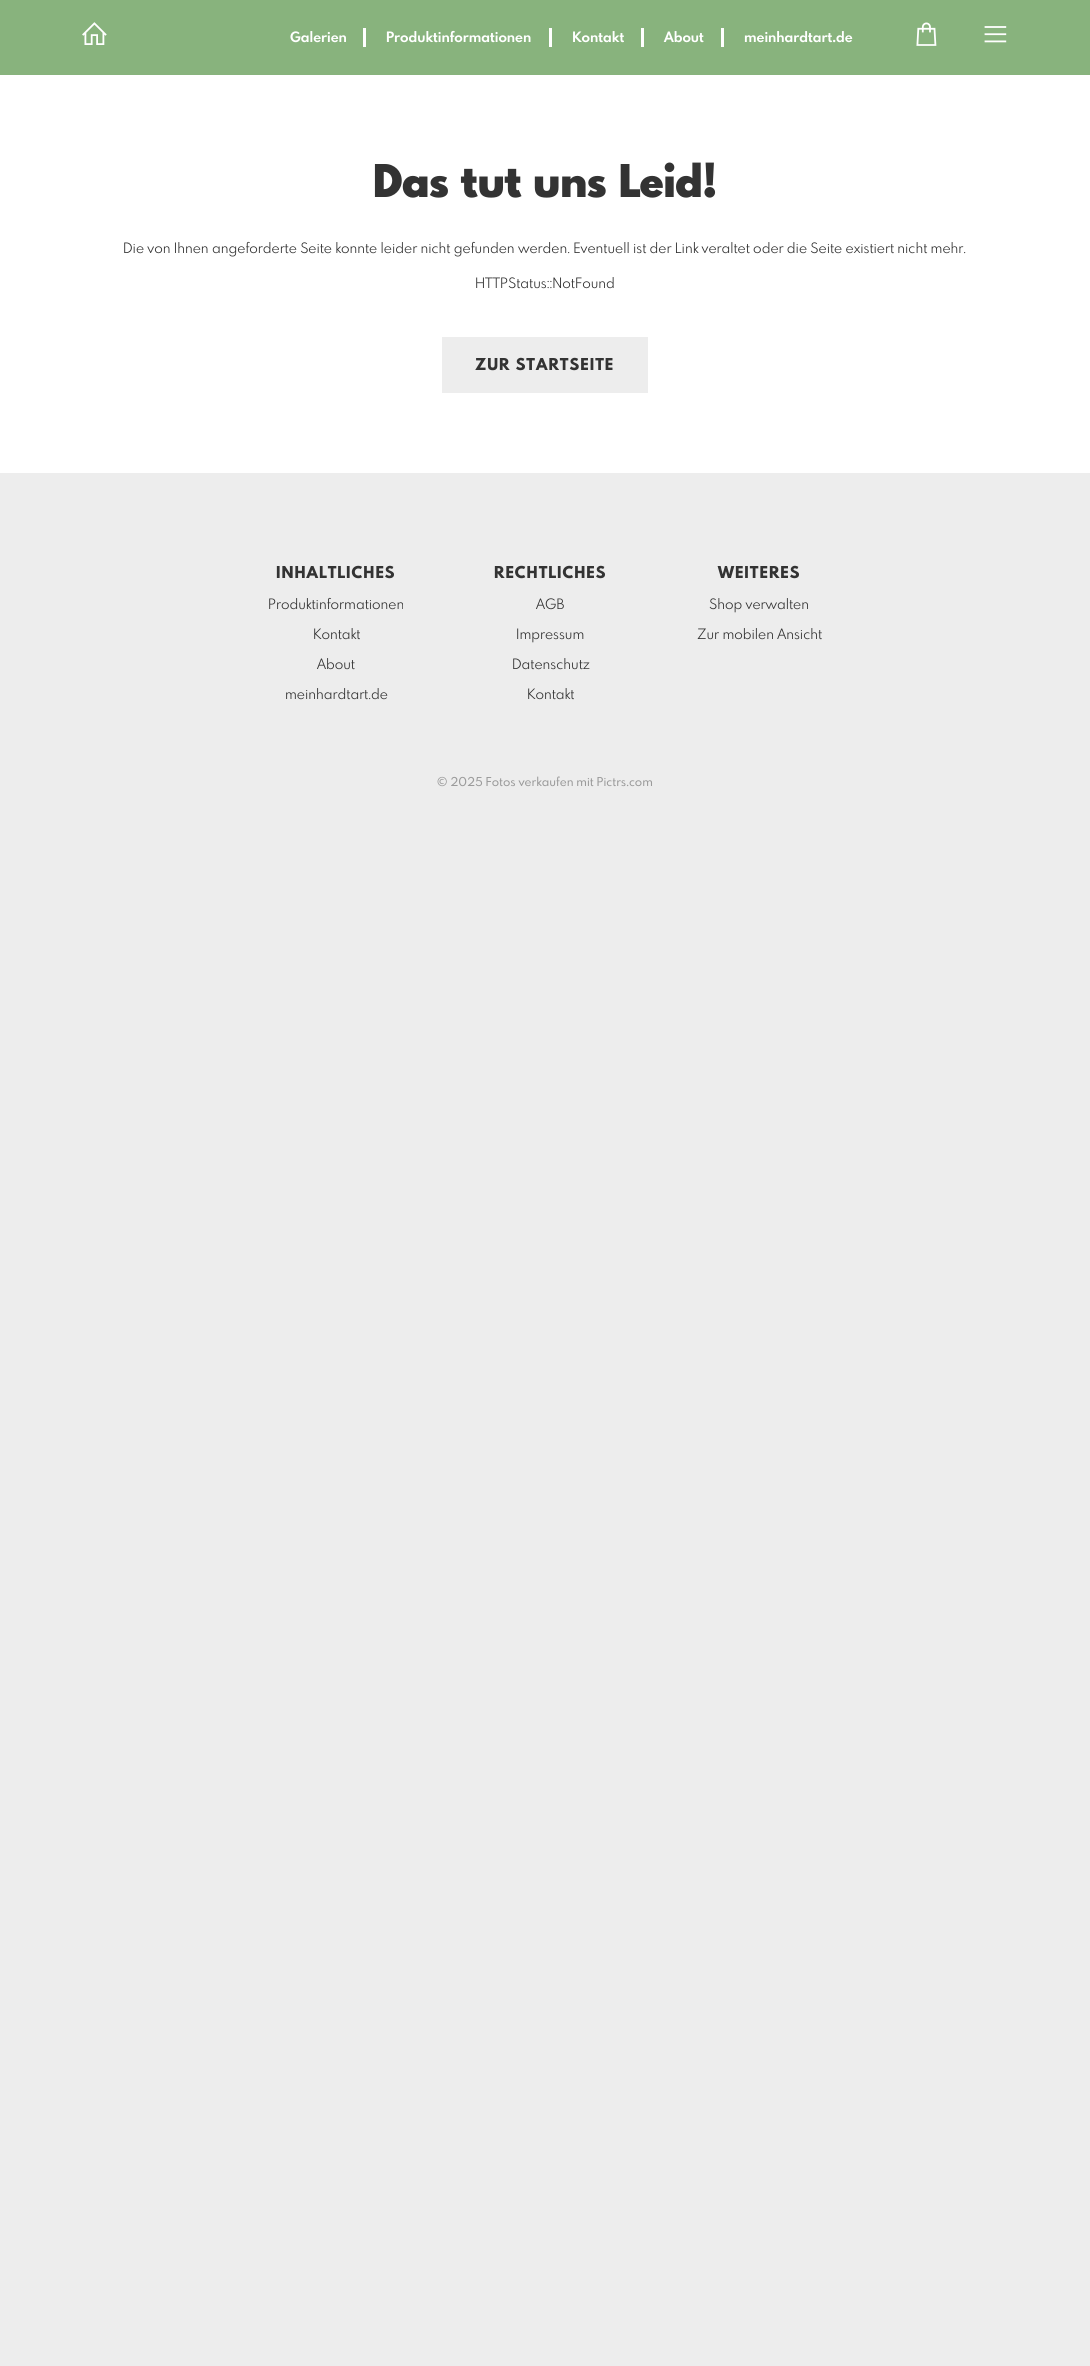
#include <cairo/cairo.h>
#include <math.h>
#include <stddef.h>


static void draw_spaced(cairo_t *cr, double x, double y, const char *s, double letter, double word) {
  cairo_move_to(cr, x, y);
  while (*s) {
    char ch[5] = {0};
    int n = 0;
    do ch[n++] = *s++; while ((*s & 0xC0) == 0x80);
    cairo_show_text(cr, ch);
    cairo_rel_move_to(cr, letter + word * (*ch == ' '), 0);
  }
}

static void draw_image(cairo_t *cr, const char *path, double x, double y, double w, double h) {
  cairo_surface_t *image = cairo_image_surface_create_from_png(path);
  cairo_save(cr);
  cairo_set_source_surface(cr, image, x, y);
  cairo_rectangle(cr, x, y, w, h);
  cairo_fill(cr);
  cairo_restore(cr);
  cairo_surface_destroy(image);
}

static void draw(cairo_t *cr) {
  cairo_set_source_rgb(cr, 237 / 255.0, 237 / 255.0, 237 / 255.0);
  cairo_paint(cr);
  cairo_set_source_rgb(cr, 136 / 255.0, 179 / 255.0, 125 / 255.0);
  cairo_rectangle(cr, 0, 0, 1090, 75);
  cairo_fill(cr);
  draw_image(cr, "images/1.png", 82, 22, 25, 23);
  cairo_set_source_rgb(cr, 1, 1, 1);
  cairo_rectangle(cr, 363, 28, 3, 19);
  cairo_fill(cr);
  cairo_rectangle(cr, 549, 28, 3, 19);
  cairo_fill(cr);
  cairo_rectangle(cr, 641, 28, 3, 19);
  cairo_fill(cr);
  cairo_rectangle(cr, 721, 28, 3, 19);
  cairo_fill(cr);
  draw_image(cr, "images/2.png", 916, 22, 21, 24);
  draw_image(cr, "images/3.png", 984, 26, 23, 17);
  cairo_rectangle(cr, 0, 75, 1090, 398);
  cairo_fill(cr);
  cairo_set_source_rgb(cr, 237 / 255.0, 237 / 255.0, 237 / 255.0);
  cairo_rectangle(cr, 442, 337, 206, 56);
  cairo_fill(cr);
  cairo_select_font_face(cr, "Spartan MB", CAIRO_FONT_SLANT_NORMAL, CAIRO_FONT_WEIGHT_BOLD);
  cairo_set_font_size(cr, 14);
  cairo_set_source_rgb(cr, 1, 1, 1);
  cairo_move_to(cr, 290, 42);
  cairo_show_text(cr, "Galerien");
  cairo_move_to(cr, 386, 42);
  cairo_show_text(cr, "Produktinformationen");
  cairo_move_to(cr, 572, 42);
  cairo_show_text(cr, "Kontakt");
  cairo_move_to(cr, 664, 42);
  cairo_show_text(cr, "About");
  cairo_move_to(cr, 744, 42);
  cairo_show_text(cr, "meinhardtart.de");
  cairo_select_font_face(cr, "Spartan MB Black", CAIRO_FONT_SLANT_NORMAL, CAIRO_FONT_WEIGHT_NORMAL);
  cairo_set_font_size(cr, 44);
  cairo_set_source_rgb(cr, 51 / 255.0, 51 / 255.0, 51 / 255.0);
  cairo_move_to(cr, 373, 197);
  cairo_show_text(cr, "Das tut uns Leid!");
  cairo_select_font_face(cr, "Spartan MB", CAIRO_FONT_SLANT_NORMAL, CAIRO_FONT_WEIGHT_NORMAL);
  cairo_set_font_size(cr, 14);
  cairo_move_to(cr, 123, 253);
  cairo_show_text(cr, "Die von Ihnen angeforderte Seite konnte leider nicht gefunden werden. Eventuell ist der Link veraltet oder die Seite existiert nicht mehr.");
  cairo_move_to(cr, 475, 288);
  cairo_show_text(cr, "HTTPStatus::NotFound");
  cairo_select_font_face(cr, "Spartan MB ExtraBold", CAIRO_FONT_SLANT_NORMAL, CAIRO_FONT_WEIGHT_NORMAL);
  cairo_set_font_size(cr, 16);
  draw_spaced(cr, 475, 370, "ZUR STARTSEITE", 1, 0);
  draw_spaced(cr, 276, 578, "INHALTLICHES", 1, 0);
  cairo_select_font_face(cr, "Spartan MB", CAIRO_FONT_SLANT_NORMAL, CAIRO_FONT_WEIGHT_NORMAL);
  cairo_set_font_size(cr, 14);
  cairo_move_to(cr, 268, 609);
  cairo_show_text(cr, "Produktinformationen");
  cairo_move_to(cr, 313, 639);
  cairo_show_text(cr, "Kontakt");
  cairo_move_to(cr, 317, 669);
  cairo_show_text(cr, "About");
  cairo_move_to(cr, 285, 699);
  cairo_show_text(cr, "meinhardtart.de");
  cairo_select_font_face(cr, "Spartan MB ExtraBold", CAIRO_FONT_SLANT_NORMAL, CAIRO_FONT_WEIGHT_NORMAL);
  cairo_set_font_size(cr, 16);
  draw_spaced(cr, 494, 578, "RECHTLICHES", 1, 0);
  cairo_select_font_face(cr, "Spartan MB", CAIRO_FONT_SLANT_NORMAL, CAIRO_FONT_WEIGHT_NORMAL);
  cairo_set_font_size(cr, 14);
  cairo_move_to(cr, 536, 609);
  cairo_show_text(cr, "AGB");
  cairo_move_to(cr, 516, 639);
  cairo_show_text(cr, "Impressum");
  cairo_move_to(cr, 512, 669);
  cairo_show_text(cr, "Datenschutz");
  cairo_move_to(cr, 527, 699);
  cairo_show_text(cr, "Kontakt");
  cairo_select_font_face(cr, "Spartan MB ExtraBold", CAIRO_FONT_SLANT_NORMAL, CAIRO_FONT_WEIGHT_NORMAL);
  cairo_set_font_size(cr, 16);
  draw_spaced(cr, 718, 578, "WEITERES", 1, 0);
  cairo_select_font_face(cr, "Spartan MB", CAIRO_FONT_SLANT_NORMAL, CAIRO_FONT_WEIGHT_NORMAL);
  cairo_set_font_size(cr, 14);
  cairo_move_to(cr, 709, 609);
  cairo_show_text(cr, "Shop verwalten");
  cairo_move_to(cr, 697, 639);
  cairo_show_text(cr, "Zur mobilen Ansicht");
  cairo_select_font_face(cr, "Spartan MB Medium", CAIRO_FONT_SLANT_NORMAL, CAIRO_FONT_WEIGHT_NORMAL);
  cairo_set_font_size(cr, 12);
  cairo_set_source_rgb(cr, 155 / 255.0, 155 / 255.0, 155 / 255.0);
  cairo_move_to(cr, 437, 786);
  cairo_show_text(cr, "© 2025 Fotos verkaufen mit Pictrs.com");
}

int main(void) {
  cairo_surface_t *surface = cairo_image_surface_create(CAIRO_FORMAT_RGB24, 1090, 2366);
  cairo_t *cr = cairo_create(surface);
  cairo_font_options_t *options = cairo_font_options_create();
  cairo_font_options_set_hint_metrics(options, CAIRO_HINT_METRICS_OFF);
  cairo_font_options_set_hint_style(options, CAIRO_HINT_STYLE_NONE);
  cairo_set_font_options(cr, options);
  cairo_set_miter_limit(cr, 4);
  draw(cr);
  cairo_surface_write_to_png(surface, "out.png");
  cairo_font_options_destroy(options);
  cairo_destroy(cr);
  cairo_surface_destroy(surface);
  return 0;
}
